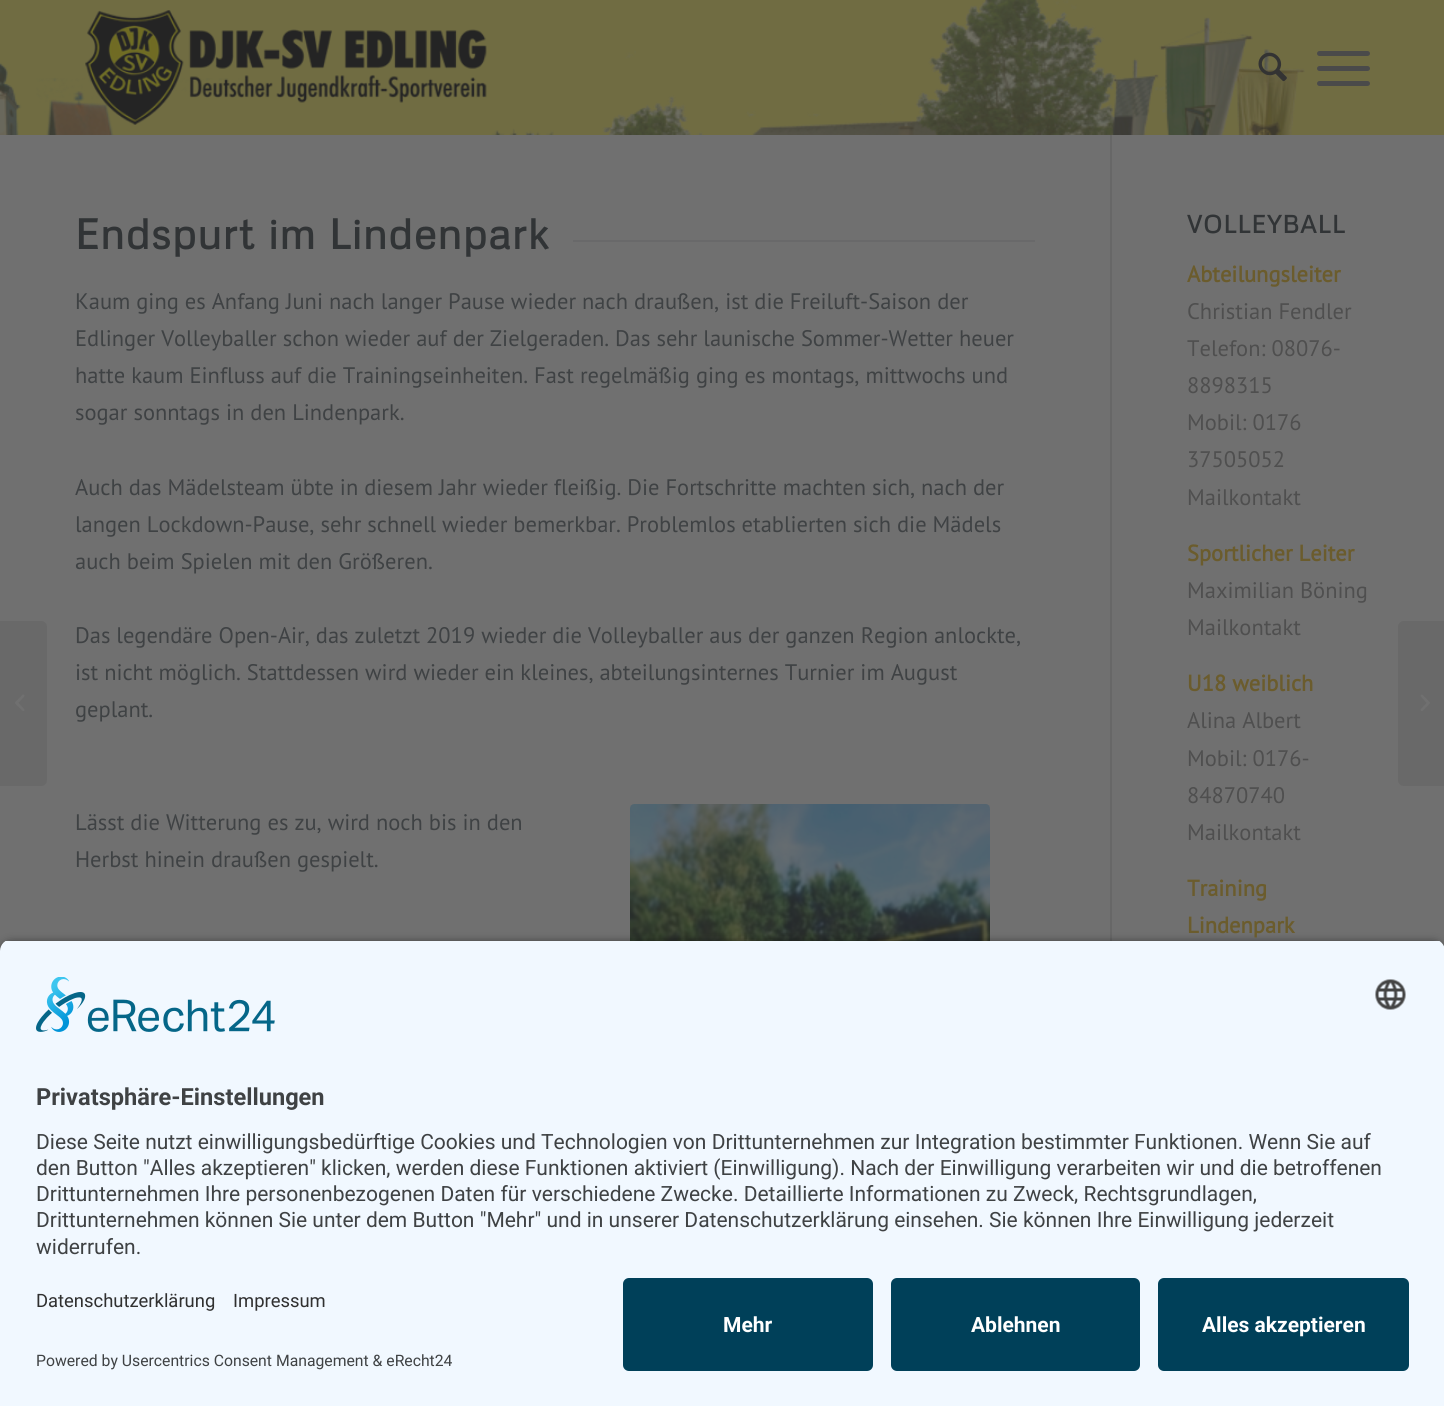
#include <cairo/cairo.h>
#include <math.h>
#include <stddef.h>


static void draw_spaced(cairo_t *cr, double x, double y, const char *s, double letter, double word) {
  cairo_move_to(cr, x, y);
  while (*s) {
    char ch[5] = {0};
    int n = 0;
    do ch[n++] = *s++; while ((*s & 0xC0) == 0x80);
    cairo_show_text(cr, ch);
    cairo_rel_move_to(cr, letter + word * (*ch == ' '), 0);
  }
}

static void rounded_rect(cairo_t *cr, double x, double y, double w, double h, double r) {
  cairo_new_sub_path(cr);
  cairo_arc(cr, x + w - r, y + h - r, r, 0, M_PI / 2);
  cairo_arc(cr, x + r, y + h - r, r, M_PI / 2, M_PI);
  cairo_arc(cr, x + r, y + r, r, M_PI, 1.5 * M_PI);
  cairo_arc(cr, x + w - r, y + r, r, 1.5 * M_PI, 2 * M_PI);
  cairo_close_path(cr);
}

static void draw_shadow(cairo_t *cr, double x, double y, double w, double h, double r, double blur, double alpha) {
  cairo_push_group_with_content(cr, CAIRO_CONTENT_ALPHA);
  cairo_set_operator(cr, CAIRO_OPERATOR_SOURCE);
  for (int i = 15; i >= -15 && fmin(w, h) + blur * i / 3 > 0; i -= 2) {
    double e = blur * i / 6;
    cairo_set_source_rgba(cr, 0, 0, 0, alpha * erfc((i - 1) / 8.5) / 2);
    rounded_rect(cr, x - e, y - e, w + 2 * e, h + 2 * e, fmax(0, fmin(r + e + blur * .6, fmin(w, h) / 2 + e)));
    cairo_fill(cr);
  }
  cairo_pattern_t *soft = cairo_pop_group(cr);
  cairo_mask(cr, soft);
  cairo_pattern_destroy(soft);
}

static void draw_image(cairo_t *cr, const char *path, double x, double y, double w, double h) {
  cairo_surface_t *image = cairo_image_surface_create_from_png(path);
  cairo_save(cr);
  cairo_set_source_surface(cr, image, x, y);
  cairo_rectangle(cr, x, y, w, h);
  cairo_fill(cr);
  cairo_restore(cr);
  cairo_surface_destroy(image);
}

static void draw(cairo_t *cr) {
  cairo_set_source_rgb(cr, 112 / 255.0, 112 / 255.0, 112 / 255.0);
  cairo_paint(cr);
  cairo_set_source_rgb(cr, 112 / 255.0, 108 / 255.0, 66 / 255.0);
  cairo_rectangle(cr, 0, 0, 1444, 135);
  cairo_fill(cr);
  draw_image(cr, "images/1.png", 0, 0, 1305, 135);
  draw_image(cr, "images/2.png", 85, 10, 402, 115);
  draw_image(cr, "images/3.png", 1258, 52, 29, 30);
  cairo_set_source_rgb(cr, 74 / 255.0, 74 / 255.0, 74 / 255.0);
  rounded_rect(cr, 1317, 66, 53, 5, 2.5);
  cairo_fill(cr);
  rounded_rect(cr, 1317, 51, 53, 5, 2.5);
  cairo_fill(cr);
  rounded_rect(cr, 1317, 81, 53, 5, 2.5);
  cairo_fill(cr);
  cairo_set_source_rgb(cr, 105 / 255.0, 105 / 255.0, 105 / 255.0);
  cairo_new_path(cr);
  cairo_move_to(cr, 0, 621);
  cairo_line_to(cr, 41, 621);
  cairo_curve_to(cr, 44.5, 621, 47, 623.5, 47, 627);
  cairo_line_to(cr, 47, 780);
  cairo_curve_to(cr, 47, 783.5, 44.5, 786, 41, 786);
  cairo_line_to(cr, 0, 786);
  cairo_close_path(cr);
  cairo_fill(cr);
  draw_image(cr, "images/4.png", 15, 694, 10, 17);
  cairo_set_source_rgb(cr, 103 / 255.0, 103 / 255.0, 103 / 255.0);
  cairo_rectangle(cr, 1110, 135, 2, 806);
  cairo_fill(cr);
  cairo_set_source_rgb(cr, 105 / 255.0, 105 / 255.0, 106 / 255.0);
  cairo_rectangle(cr, 573, 240, 462, 2);
  cairo_fill(cr);
  draw_image(cr, "images/5.png", 630, 804, 360, 137);
  cairo_set_source_rgb(cr, 105 / 255.0, 105 / 255.0, 105 / 255.0);
  cairo_new_path(cr);
  cairo_move_to(cr, 1404, 621);
  cairo_line_to(cr, 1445, 621);
  cairo_line_to(cr, 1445, 786);
  cairo_line_to(cr, 1404, 786);
  cairo_curve_to(cr, 1400.5, 786, 1398, 783.5, 1398, 780);
  cairo_line_to(cr, 1398, 627);
  cairo_curve_to(cr, 1398, 623.5, 1400.5, 621, 1404, 621);
  cairo_close_path(cr);
  cairo_fill(cr);
  draw_image(cr, "images/6.png", 1420, 694, 10, 17);
  cairo_set_source_rgb(cr, 0, 0, 0);
  draw_shadow(cr, 0, 944, 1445, 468, 12, 5, 0.8);
  cairo_save(cr);
  cairo_new_path(cr);
  cairo_move_to(cr, 12, 939);
  cairo_line_to(cr, 1433, 939);
  cairo_curve_to(cr, 1439.5, 939, 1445, 944.5, 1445, 951);
  cairo_line_to(cr, 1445, 1266);
  cairo_line_to(cr, 0, 1266);
  cairo_line_to(cr, 0, 951);
  cairo_curve_to(cr, 0, 944.5, 5.5, 939, 12, 939);
  cairo_close_path(cr);
  cairo_clip(cr);
  cairo_set_source_rgb(cr, 241 / 255.0, 248 / 255.0, 1);
  cairo_rectangle(cr, 0, 941, 1444, 325);
  cairo_fill(cr);
  cairo_restore(cr);
  draw_image(cr, "images/7.png", 36, 977, 239, 55);
  draw_image(cr, "images/8.png", 1375, 979, 31, 31);
  cairo_set_source_rgb(cr, 241 / 255.0, 248 / 255.0, 1);
  cairo_rectangle(cr, 0, 1266, 1444, 140);
  cairo_fill(cr);
  cairo_set_source_rgb(cr, 0, 64 / 255.0, 89 / 255.0);
  rounded_rect(cr, 623, 1278, 250, 93, 6);
  cairo_fill(cr);
  rounded_rect(cr, 891, 1278, 249, 93, 6);
  cairo_fill(cr);
  rounded_rect(cr, 1158, 1278, 251, 93, 6);
  cairo_fill(cr);
  cairo_select_font_face(cr, "Metrophobic", CAIRO_FONT_SLANT_NORMAL, CAIRO_FONT_WEIGHT_BOLD);
  cairo_set_font_size(cr, 42);
  cairo_set_source_rgb(cr, 49 / 255.0, 52 / 255.0, 54 / 255.0);
  draw_spaced(cr, 75, 249, "Endspurt im Lindenpark", 1.5, 0);
  cairo_select_font_face(cr, "PT Sans", CAIRO_FONT_SLANT_NORMAL, CAIRO_FONT_WEIGHT_NORMAL);
  cairo_set_font_size(cr, 22.5);
  cairo_set_source_rgb(cr, 63 / 255.0, 66 / 255.0, 68 / 255.0);
  cairo_move_to(cr, 75, 309);
  cairo_show_text(cr, "Kaum ging es Anfang Juni nach langer Pause wieder nach draußen, ist die Freiluft-Saison der");
  cairo_move_to(cr, 75, 346);
  cairo_show_text(cr, "Edlinger Volleyballer schon wieder auf der Zielgeraden. Das sehr launische Sommer-Wetter heuer");
  cairo_move_to(cr, 75, 383);
  cairo_show_text(cr, "hatte kaum Einfluss auf die Trainingseinheiten. Fast regelmäßig ging es montags, mittwochs und");
  cairo_move_to(cr, 75, 420);
  cairo_show_text(cr, "sogar sonntags in den Lindenpark.");
  cairo_move_to(cr, 75, 495);
  cairo_show_text(cr, "Auch das Mädelsteam übte in diesem Jahr wieder fleißig. Die Fortschritte machten sich, nach der");
  cairo_move_to(cr, 75, 532);
  cairo_show_text(cr, "langen Lockdown-Pause, sehr schnell wieder bemerkbar. Problemlos etablierten sich die Mädels");
  cairo_move_to(cr, 75, 569);
  cairo_show_text(cr, "auch beim Spielen mit den Größeren.");
  cairo_move_to(cr, 75, 643);
  cairo_show_text(cr, "Das legendäre Open-Air, das zuletzt 2019 wieder die Volleyballer aus der ganzen Region anlockte,");
  cairo_move_to(cr, 75, 680);
  cairo_show_text(cr, "ist nicht möglich. Stattdessen wird wieder ein kleines, abteilungsinternes Turnier im August");
  cairo_move_to(cr, 75, 717);
  cairo_show_text(cr, "geplant.");
  cairo_move_to(cr, 75, 830);
  cairo_show_text(cr, "Lässt die Witterung es zu, wird noch bis in den");
  cairo_move_to(cr, 75, 867);
  cairo_show_text(cr, "Herbst hinein draußen gespielt.");
  cairo_select_font_face(cr, "Metrophobic", CAIRO_FONT_SLANT_NORMAL, CAIRO_FONT_WEIGHT_BOLD);
  cairo_set_font_size(cr, 24.75);
  cairo_set_source_rgb(cr, 49 / 255.0, 52 / 255.0, 54 / 255.0);
  draw_spaced(cr, 1187, 233, "VOLLEYBALL", 1.5, 0);
  cairo_select_font_face(cr, "PT Sans", CAIRO_FONT_SLANT_NORMAL, CAIRO_FONT_WEIGHT_BOLD);
  cairo_set_font_size(cr, 22.5);
  cairo_set_source_rgb(cr, 107 / 255.0, 92 / 255.0, 45 / 255.0);
  cairo_move_to(cr, 1187, 282);
  cairo_show_text(cr, "Abteilungsleiter");
  cairo_select_font_face(cr, "PT Sans", CAIRO_FONT_SLANT_NORMAL, CAIRO_FONT_WEIGHT_NORMAL);
  cairo_set_source_rgb(cr, 79 / 255.0, 79 / 255.0, 79 / 255.0);
  cairo_move_to(cr, 1187, 319);
  cairo_show_text(cr, "Christian Fendler");
  cairo_move_to(cr, 1187, 356);
  cairo_show_text(cr, "Telefon: 08076-");
  cairo_move_to(cr, 1187, 393);
  cairo_show_text(cr, "8898315");
  cairo_move_to(cr, 1187, 430);
  cairo_show_text(cr, "Mobil: 0176");
  cairo_move_to(cr, 1187, 467);
  cairo_show_text(cr, "37505052");
  cairo_move_to(cr, 1187, 505);
  cairo_show_text(cr, "Mailkontakt");
  cairo_select_font_face(cr, "PT Sans", CAIRO_FONT_SLANT_NORMAL, CAIRO_FONT_WEIGHT_BOLD);
  cairo_set_source_rgb(cr, 107 / 255.0, 92 / 255.0, 45 / 255.0);
  cairo_move_to(cr, 1187, 561);
  cairo_show_text(cr, "Sportlicher Leiter");
  cairo_select_font_face(cr, "PT Sans", CAIRO_FONT_SLANT_NORMAL, CAIRO_FONT_WEIGHT_NORMAL);
  cairo_set_source_rgb(cr, 79 / 255.0, 79 / 255.0, 79 / 255.0);
  cairo_move_to(cr, 1187, 598);
  cairo_show_text(cr, "Maximilian Böning");
  cairo_move_to(cr, 1187, 635);
  cairo_show_text(cr, "Mailkontakt");
  cairo_select_font_face(cr, "PT Sans", CAIRO_FONT_SLANT_NORMAL, CAIRO_FONT_WEIGHT_BOLD);
  cairo_set_source_rgb(cr, 107 / 255.0, 92 / 255.0, 45 / 255.0);
  cairo_move_to(cr, 1187, 691);
  cairo_show_text(cr, "U18 weiblich");
  cairo_select_font_face(cr, "PT Sans", CAIRO_FONT_SLANT_NORMAL, CAIRO_FONT_WEIGHT_NORMAL);
  cairo_set_source_rgb(cr, 79 / 255.0, 79 / 255.0, 79 / 255.0);
  cairo_move_to(cr, 1187, 728);
  cairo_show_text(cr, "Alina Albert");
  cairo_move_to(cr, 1187, 766);
  cairo_show_text(cr, "Mobil: 0176-");
  cairo_move_to(cr, 1187, 803);
  cairo_show_text(cr, "84870740");
  cairo_move_to(cr, 1187, 840);
  cairo_show_text(cr, "Mailkontakt");
  cairo_select_font_face(cr, "PT Sans", CAIRO_FONT_SLANT_NORMAL, CAIRO_FONT_WEIGHT_BOLD);
  cairo_set_source_rgb(cr, 107 / 255.0, 92 / 255.0, 45 / 255.0);
  cairo_move_to(cr, 1187, 896);
  cairo_show_text(cr, "Training");
  cairo_move_to(cr, 1187, 933);
  cairo_show_text(cr, "Lindenpark");
  cairo_select_font_face(cr, "Roboto", CAIRO_FONT_SLANT_NORMAL, CAIRO_FONT_WEIGHT_BOLD);
  cairo_set_font_size(cr, 23.6);
  cairo_set_source_rgb(cr, 63 / 255.0, 66 / 255.0, 68 / 255.0);
  cairo_move_to(cr, 36, 1105);
  cairo_show_text(cr, "Privatsphäre-Einstellungen");
  cairo_select_font_face(cr, "Roboto", CAIRO_FONT_SLANT_NORMAL, CAIRO_FONT_WEIGHT_NORMAL);
  cairo_set_font_size(cr, 21);
  cairo_move_to(cr, 36, 1149);
  cairo_show_text(cr, "Diese Seite nutzt einwilligungsbedürftige Cookies und Technologien von Drittunternehmen zur Integration bestimmter Funktionen. Wenn Sie auf");
  cairo_move_to(cr, 36, 1175);
  cairo_show_text(cr, "den Button \"Alles akzeptieren\" klicken, werden diese Funktionen aktiviert (Einwilligung). Nach der Einwilligung verarbeiten wir und die betroffenen");
  cairo_move_to(cr, 36, 1201);
  cairo_show_text(cr, "Drittunternehmen Ihre personenbezogenen Daten für verschiedene Zwecke. Detaillierte Informationen zu Zweck, Rechtsgrundlagen,");
  cairo_move_to(cr, 36, 1227);
  cairo_show_text(cr, "Drittunternehmen können Sie unter dem Button \"Mehr\" und in unserer Datenschutzerklärung einsehen. Sie können Ihre Einwilligung jederzeit");
  cairo_move_to(cr, 36, 1254);
  cairo_show_text(cr, "widerrufen.");
  cairo_set_font_size(cr, 18.4);
  cairo_set_source_rgb(cr, 48 / 255.0, 48 / 255.0, 48 / 255.0);
  cairo_move_to(cr, 36, 1307);
  cairo_show_text(cr, "Datenschutzerklärung");
  cairo_move_to(cr, 233, 1307);
  cairo_show_text(cr, "Impressum");
  cairo_set_font_size(cr, 15.75);
  cairo_set_source_rgb(cr, 63 / 255.0, 66 / 255.0, 68 / 255.0);
  cairo_move_to(cr, 36, 1366);
  cairo_show_text(cr, "Powered by Usercentrics Consent Management & eRecht24");
  cairo_select_font_face(cr, "Roboto", CAIRO_FONT_SLANT_NORMAL, CAIRO_FONT_WEIGHT_BOLD);
  cairo_set_font_size(cr, 21);
  cairo_set_source_rgb(cr, 1, 1, 1);
  cairo_move_to(cr, 723, 1332);
  cairo_show_text(cr, "Mehr");
  cairo_move_to(cr, 971, 1332);
  cairo_show_text(cr, "Ablehnen");
  cairo_move_to(cr, 1202, 1332);
  cairo_show_text(cr, "Alles akzeptieren");
}

int main(void) {
  cairo_surface_t *surface = cairo_image_surface_create(CAIRO_FORMAT_RGB24, 1444, 1406);
  cairo_t *cr = cairo_create(surface);
  cairo_font_options_t *options = cairo_font_options_create();
  cairo_font_options_set_hint_metrics(options, CAIRO_HINT_METRICS_OFF);
  cairo_font_options_set_hint_style(options, CAIRO_HINT_STYLE_NONE);
  cairo_set_font_options(cr, options);
  cairo_set_miter_limit(cr, 4);
  draw(cr);
  cairo_surface_write_to_png(surface, "out.png");
  cairo_font_options_destroy(options);
  cairo_destroy(cr);
  cairo_surface_destroy(surface);
  return 0;
}
